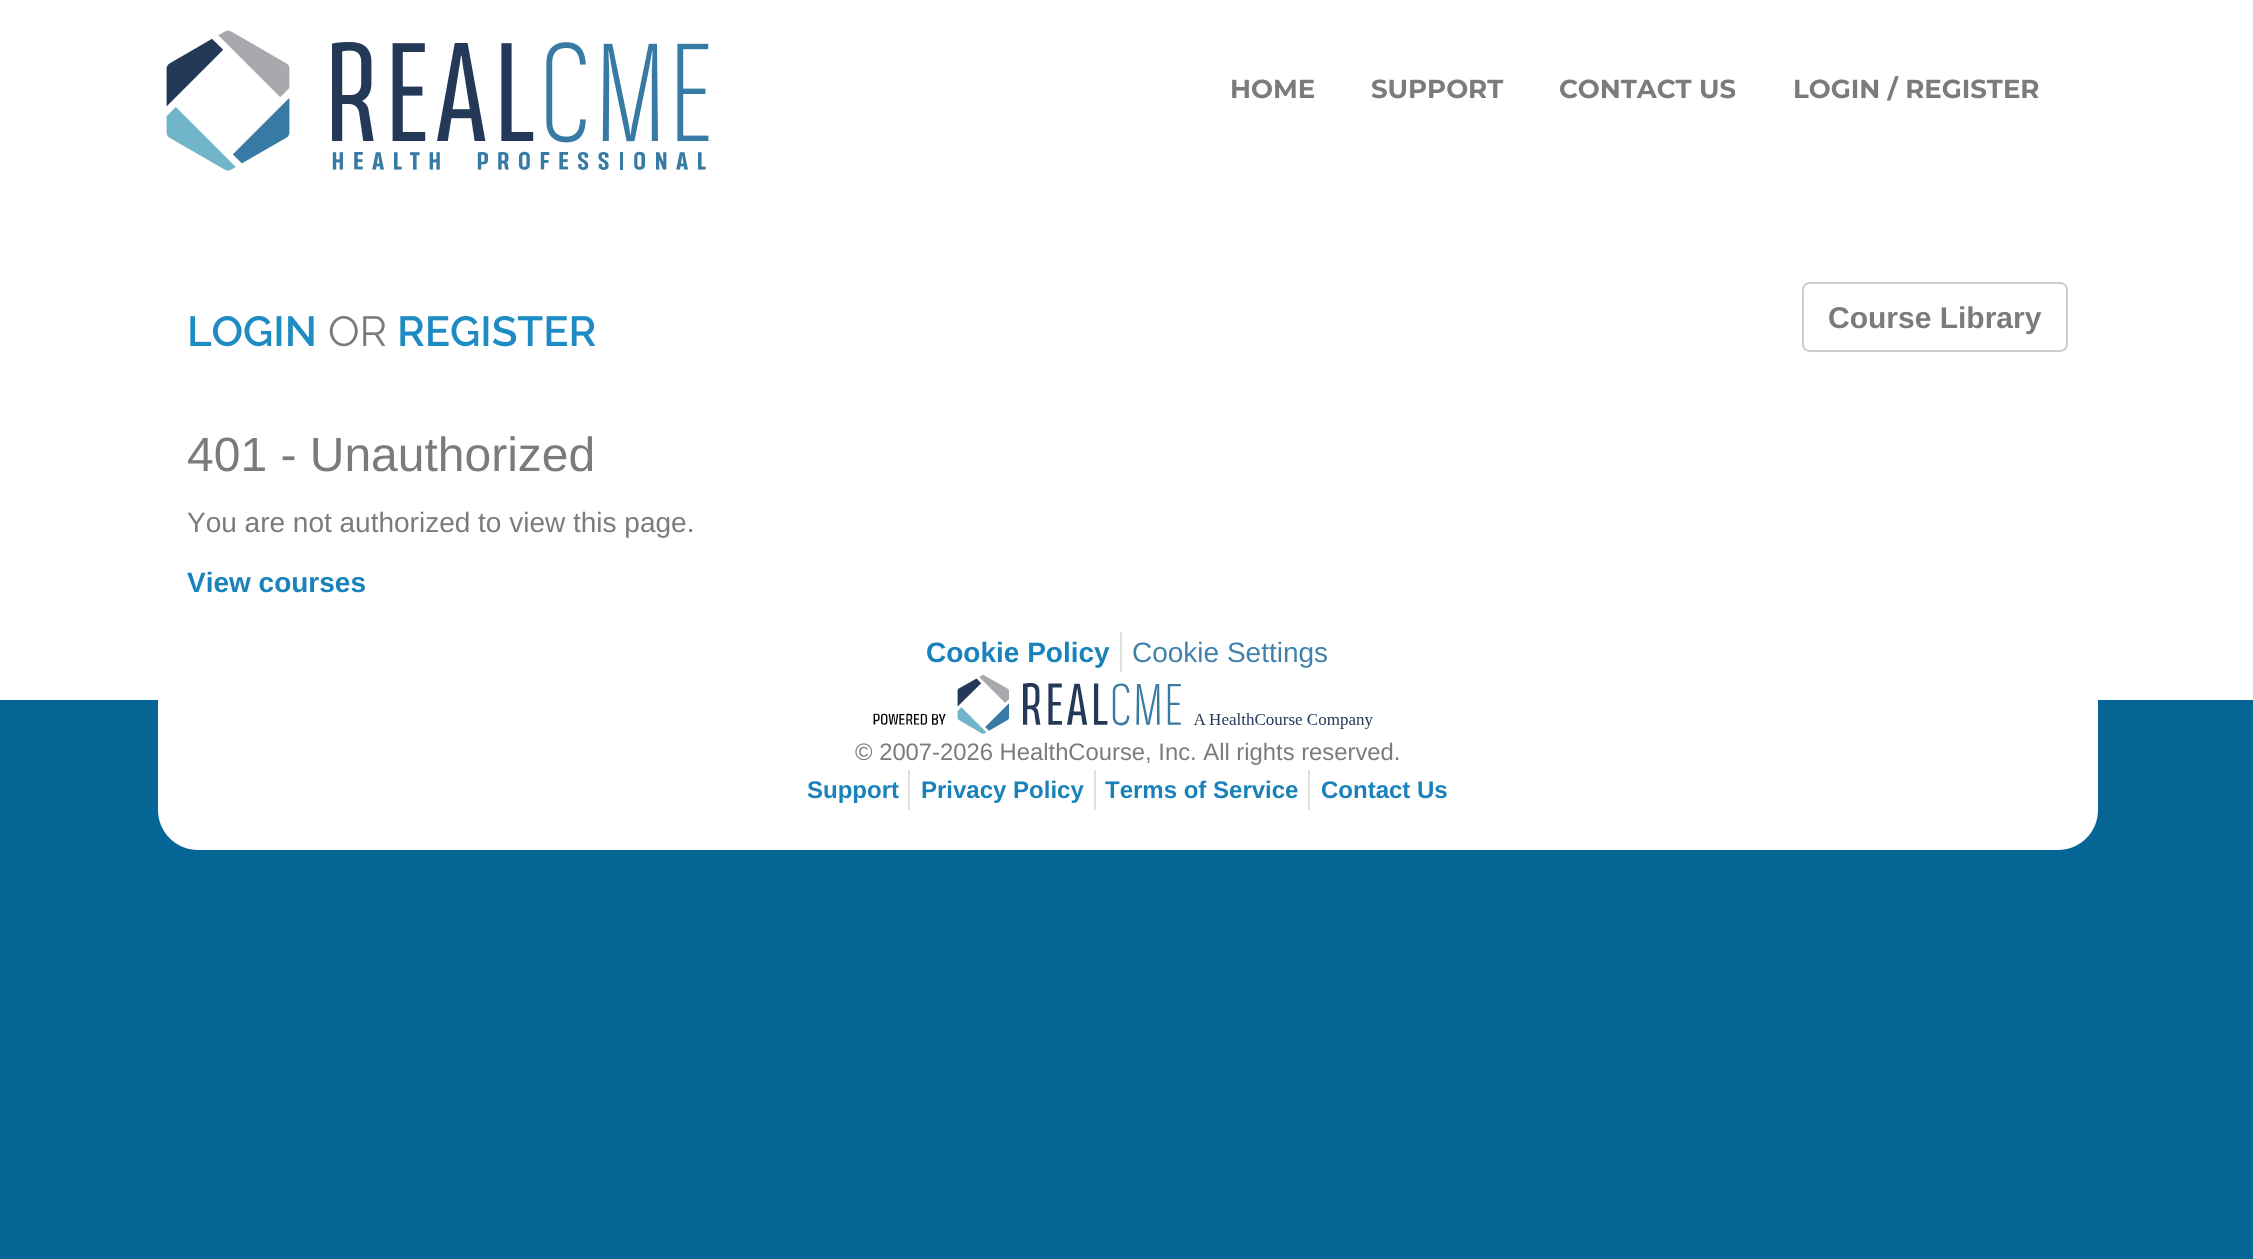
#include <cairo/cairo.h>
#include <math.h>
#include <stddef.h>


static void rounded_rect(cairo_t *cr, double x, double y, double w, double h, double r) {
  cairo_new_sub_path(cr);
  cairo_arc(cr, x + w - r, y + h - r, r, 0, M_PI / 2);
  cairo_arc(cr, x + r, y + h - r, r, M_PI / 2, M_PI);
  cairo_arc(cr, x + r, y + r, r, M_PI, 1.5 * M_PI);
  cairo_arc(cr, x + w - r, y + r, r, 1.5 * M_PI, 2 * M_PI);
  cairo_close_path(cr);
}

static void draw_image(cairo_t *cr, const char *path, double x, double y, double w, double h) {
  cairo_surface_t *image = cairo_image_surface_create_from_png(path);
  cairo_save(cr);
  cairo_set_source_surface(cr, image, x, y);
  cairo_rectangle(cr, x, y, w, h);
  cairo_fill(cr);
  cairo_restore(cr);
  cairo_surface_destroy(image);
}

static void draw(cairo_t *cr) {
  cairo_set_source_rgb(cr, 5 / 255.0, 102 / 255.0, 150 / 255.0);
  cairo_paint(cr);
  cairo_set_source_rgb(cr, 1, 1, 1);
  cairo_rectangle(cr, 0, 0, 2253, 700);
  cairo_fill(cr);
  rounded_rect(cr, 158, 0, 1940, 850, 40);
  cairo_fill(cr);
  draw_image(cr, "images/1.png", 166, 30, 543, 141);
  rounded_rect(cr, 1803, 283, 264, 68, 7);
  cairo_set_source_rgb(cr, 204 / 255.0, 204 / 255.0, 204 / 255.0);
  cairo_stroke(cr);
  cairo_set_source_rgb(cr, 223 / 255.0, 223 / 255.0, 223 / 255.0);
  cairo_rectangle(cr, 1120, 632, 2, 40);
  cairo_fill(cr);
  draw_image(cr, "images/2.png", 873, 675, 500, 59);
  cairo_rectangle(cr, 908, 770, 2, 40);
  cairo_fill(cr);
  cairo_rectangle(cr, 1094, 770, 2, 40);
  cairo_fill(cr);
  cairo_rectangle(cr, 1308, 770, 2, 40);
  cairo_fill(cr);
  cairo_select_font_face(cr, "Montserrat", CAIRO_FONT_SLANT_NORMAL, CAIRO_FONT_WEIGHT_BOLD);
  cairo_set_font_size(cr, 26);
  cairo_set_source_rgb(cr, 123 / 255.0, 123 / 255.0, 123 / 255.0);
  cairo_move_to(cr, 1230, 98);
  cairo_show_text(cr, "HOME");
  cairo_move_to(cr, 1371, 98);
  cairo_show_text(cr, "SUPPORT");
  cairo_move_to(cr, 1559, 98);
  cairo_show_text(cr, "CONTACT US");
  cairo_move_to(cr, 1793, 98);
  cairo_show_text(cr, "LOGIN / REGISTER");
  cairo_select_font_face(cr, "Raleway SemiBold", CAIRO_FONT_SLANT_NORMAL, CAIRO_FONT_WEIGHT_NORMAL);
  cairo_set_font_size(cr, 42);
  cairo_set_source_rgb(cr, 30 / 255.0, 139 / 255.0, 195 / 255.0);
  cairo_move_to(cr, 187, 346);
  cairo_show_text(cr, "LOGIN");
  cairo_select_font_face(cr, "Raleway", CAIRO_FONT_SLANT_NORMAL, CAIRO_FONT_WEIGHT_NORMAL);
  cairo_set_source_rgb(cr, 123 / 255.0, 123 / 255.0, 123 / 255.0);
  cairo_move_to(cr, 328, 346);
  cairo_show_text(cr, "OR");
  cairo_select_font_face(cr, "Raleway SemiBold", CAIRO_FONT_SLANT_NORMAL, CAIRO_FONT_WEIGHT_NORMAL);
  cairo_set_source_rgb(cr, 30 / 255.0, 139 / 255.0, 195 / 255.0);
  cairo_move_to(cr, 397, 346);
  cairo_show_text(cr, "REGISTER");
  cairo_select_font_face(cr, "Liberation Sans", CAIRO_FONT_SLANT_NORMAL, CAIRO_FONT_WEIGHT_BOLD);
  cairo_set_font_size(cr, 30);
  cairo_set_source_rgb(cr, 123 / 255.0, 123 / 255.0, 123 / 255.0);
  cairo_move_to(cr, 1828, 328);
  cairo_show_text(cr, "Course Library");
  cairo_select_font_face(cr, "Liberation Sans", CAIRO_FONT_SLANT_NORMAL, CAIRO_FONT_WEIGHT_NORMAL);
  cairo_set_font_size(cr, 48);
  cairo_move_to(cr, 187, 471);
  cairo_show_text(cr, "401 - Unauthorized");
  cairo_set_font_size(cr, 28);
  cairo_move_to(cr, 187, 532);
  cairo_show_text(cr, "You are not authorized to view this page.");
  cairo_select_font_face(cr, "Liberation Sans", CAIRO_FONT_SLANT_NORMAL, CAIRO_FONT_WEIGHT_BOLD);
  cairo_set_source_rgb(cr, 25 / 255.0, 130 / 255.0, 187 / 255.0);
  cairo_move_to(cr, 187, 592);
  cairo_show_text(cr, "View courses");
  cairo_move_to(cr, 926, 662);
  cairo_show_text(cr, "Cookie Policy");
  cairo_select_font_face(cr, "Liberation Sans", CAIRO_FONT_SLANT_NORMAL, CAIRO_FONT_WEIGHT_NORMAL);
  cairo_set_source_rgb(cr, 66 / 255.0, 129 / 255.0, 169 / 255.0);
  cairo_move_to(cr, 1132, 662);
  cairo_show_text(cr, "Cookie Settings");
  cairo_set_font_size(cr, 23.8);
  cairo_set_source_rgb(cr, 123 / 255.0, 123 / 255.0, 123 / 255.0);
  cairo_move_to(cr, 855, 760);
  cairo_show_text(cr, "© 2007-2026 HealthCourse, Inc. All rights reserved.");
  cairo_select_font_face(cr, "Liberation Sans", CAIRO_FONT_SLANT_NORMAL, CAIRO_FONT_WEIGHT_BOLD);
  cairo_set_font_size(cr, 24);
  cairo_set_source_rgb(cr, 25 / 255.0, 130 / 255.0, 187 / 255.0);
  cairo_move_to(cr, 807, 798);
  cairo_show_text(cr, "Support");
  cairo_move_to(cr, 921, 798);
  cairo_show_text(cr, "Privacy Policy");
  cairo_move_to(cr, 1105, 798);
  cairo_show_text(cr, "Terms of Service");
  cairo_move_to(cr, 1321, 798);
  cairo_show_text(cr, "Contact Us");
}

int main(void) {
  cairo_surface_t *surface = cairo_image_surface_create(CAIRO_FORMAT_RGB24, 2253, 1259);
  cairo_t *cr = cairo_create(surface);
  cairo_font_options_t *options = cairo_font_options_create();
  cairo_font_options_set_hint_metrics(options, CAIRO_HINT_METRICS_OFF);
  cairo_font_options_set_hint_style(options, CAIRO_HINT_STYLE_NONE);
  cairo_set_font_options(cr, options);
  cairo_set_miter_limit(cr, 4);
  draw(cr);
  cairo_surface_write_to_png(surface, "out.png");
  cairo_font_options_destroy(options);
  cairo_destroy(cr);
  cairo_surface_destroy(surface);
  return 0;
}
